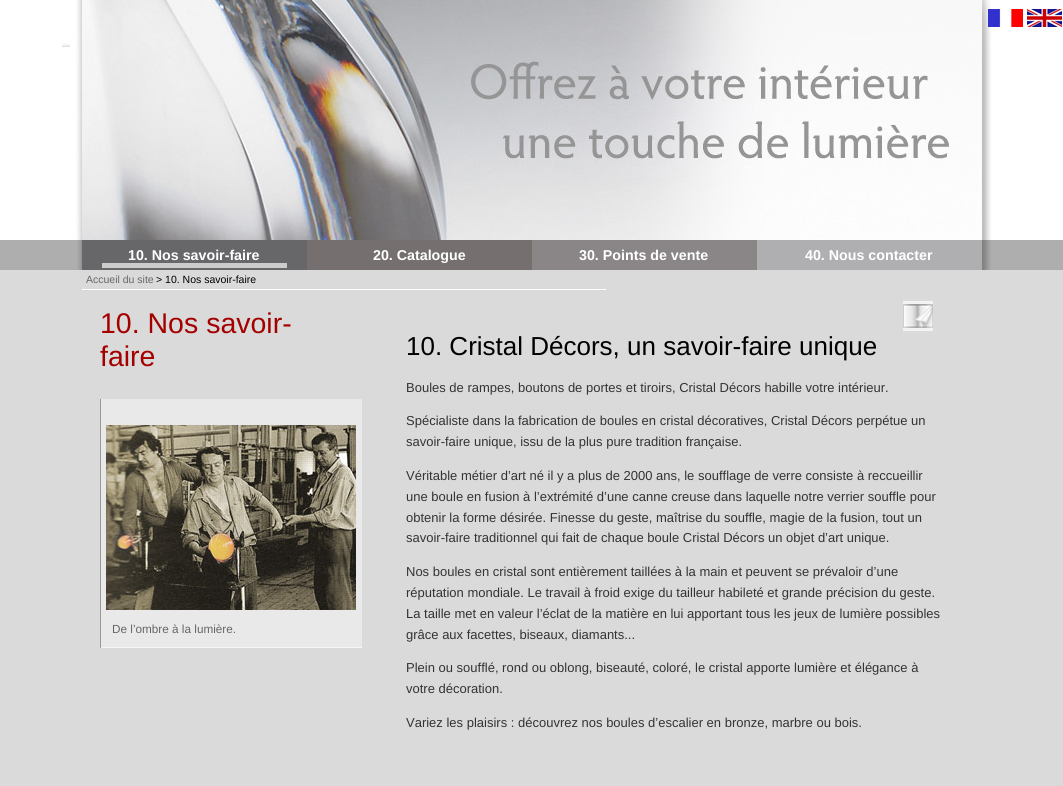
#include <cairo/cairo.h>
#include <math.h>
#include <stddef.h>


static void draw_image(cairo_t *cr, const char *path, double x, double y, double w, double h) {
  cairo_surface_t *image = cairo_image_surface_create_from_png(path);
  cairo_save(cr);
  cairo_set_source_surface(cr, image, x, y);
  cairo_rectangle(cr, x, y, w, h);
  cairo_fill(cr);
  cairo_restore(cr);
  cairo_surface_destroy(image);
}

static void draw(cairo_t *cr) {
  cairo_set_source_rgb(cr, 1, 1, 1);
  cairo_paint(cr);
  draw_image(cr, "images/1.png", 62, 0, 929, 240);
  draw_image(cr, "images/2.png", 988, 9, 35, 18);
  draw_image(cr, "images/3.png", 1027, 9, 35, 18);
  cairo_set_source_rgb(cr, 174 / 255.0, 174 / 255.0, 174 / 255.0);
  cairo_rectangle(cr, 0, 240, 1063, 30);
  cairo_fill(cr);
  draw_image(cr, "images/4.png", 77, 240, 914, 30);
  cairo_set_source_rgb(cr, 204 / 255.0, 204 / 255.0, 204 / 255.0);
  cairo_rectangle(cr, 102, 263, 185, 5);
  cairo_fill(cr);
  cairo_set_source_rgb(cr, 218 / 255.0, 218 / 255.0, 218 / 255.0);
  cairo_rectangle(cr, 0, 270, 1063, 516);
  cairo_fill(cr);
  cairo_set_source_rgb(cr, 1, 1, 1);
  cairo_rectangle(cr, 82, 289, 524, 1);
  cairo_fill(cr);
  cairo_set_source_rgb(cr, 233 / 255.0, 233 / 255.0, 233 / 255.0);
  cairo_rectangle(cr, 101, 399, 261, 248);
  cairo_fill(cr);
  cairo_set_source_rgb(cr, 245 / 255.0, 245 / 255.0, 245 / 255.0);
  cairo_rectangle(cr, 100, 647, 262, 1);
  cairo_fill(cr);
  cairo_set_source_rgb(cr, 153 / 255.0, 153 / 255.0, 153 / 255.0);
  cairo_rectangle(cr, 100, 399, 1, 249);
  cairo_fill(cr);
  draw_image(cr, "images/5.png", 106, 425, 250, 185);
  draw_image(cr, "images/6.png", 903, 301, 30, 30);
  cairo_select_font_face(cr, "Liberation Sans", CAIRO_FONT_SLANT_NORMAL, CAIRO_FONT_WEIGHT_BOLD);
  cairo_set_font_size(cr, 14.25);
  cairo_set_source_rgb(cr, 1, 1, 1);
  cairo_move_to(cr, 128, 260);
  cairo_show_text(cr, "10. Nos savoir-faire");
  cairo_move_to(cr, 373, 260);
  cairo_show_text(cr, "20. Catalogue");
  cairo_move_to(cr, 579, 260);
  cairo_show_text(cr, "30. Points de vente");
  cairo_move_to(cr, 805, 260);
  cairo_show_text(cr, "40. Nous contacter");
  cairo_select_font_face(cr, "Liberation Sans", CAIRO_FONT_SLANT_NORMAL, CAIRO_FONT_WEIGHT_NORMAL);
  cairo_set_font_size(cr, 10.5);
  cairo_set_source_rgb(cr, 102 / 255.0, 102 / 255.0, 102 / 255.0);
  cairo_move_to(cr, 86, 283);
  cairo_show_text(cr, "Accueil du site");
  cairo_set_source_rgb(cr, 0, 0, 0);
  cairo_move_to(cr, 156, 283);
  cairo_show_text(cr, "> 10. Nos savoir-faire");
  cairo_set_font_size(cr, 28.5);
  cairo_set_source_rgb(cr, 164 / 255.0, 0, 0);
  cairo_move_to(cr, 100, 333);
  cairo_show_text(cr, "10. Nos savoir-");
  cairo_move_to(cr, 100, 366);
  cairo_show_text(cr, "faire");
  cairo_set_font_size(cr, 11.75);
  cairo_set_source_rgb(cr, 102 / 255.0, 102 / 255.0, 102 / 255.0);
  cairo_move_to(cr, 112, 633);
  cairo_show_text(cr, "De l’ombre à la lumière.");
  cairo_set_font_size(cr, 26);
  cairo_set_source_rgb(cr, 0, 0, 0);
  cairo_move_to(cr, 406, 355);
  cairo_show_text(cr, "10. Cristal Décors, un savoir-faire unique");
  cairo_set_font_size(cr, 13);
  cairo_set_source_rgb(cr, 51 / 255.0, 51 / 255.0, 51 / 255.0);
  cairo_move_to(cr, 406, 392);
  cairo_show_text(cr, "Boules de rampes, boutons de portes et tiroirs, Cristal Décors habille votre intérieur.");
  cairo_move_to(cr, 406, 425);
  cairo_show_text(cr, "Spécialiste dans la fabrication de boules en cristal décoratives, Cristal Décors perpétue un");
  cairo_move_to(cr, 406, 446);
  cairo_show_text(cr, "savoir-faire unique, issu de la plus pure tradition française.");
  cairo_move_to(cr, 406, 480);
  cairo_show_text(cr, "Véritable métier d’art né il y a plus de 2000 ans, le soufflage de verre consiste à reccueillir");
  cairo_move_to(cr, 406, 501);
  cairo_show_text(cr, "une boule en fusion à l’extrémité d’une canne creuse dans laquelle notre verrier souffle pour");
  cairo_move_to(cr, 406, 522);
  cairo_show_text(cr, "obtenir la forme désirée. Finesse du geste, maîtrise du souffle, magie de la fusion, tout un");
  cairo_move_to(cr, 406, 542);
  cairo_show_text(cr, "savoir-faire traditionnel qui fait de chaque boule Cristal Décors un objet d’art unique.");
  cairo_move_to(cr, 406, 576);
  cairo_show_text(cr, "Nos boules en cristal sont entièrement taillées à la main et peuvent se prévaloir d’une");
  cairo_move_to(cr, 406, 597);
  cairo_show_text(cr, "réputation mondiale. Le travail à froid exige du tailleur habileté et grande précision du geste.");
  cairo_move_to(cr, 406, 618);
  cairo_show_text(cr, "La taille met en valeur l’éclat de la matière en lui apportant tous les jeux de lumière possibles");
  cairo_move_to(cr, 406, 639);
  cairo_show_text(cr, "grâce aux facettes, biseaux, diamants...");
  cairo_move_to(cr, 406, 672);
  cairo_show_text(cr, "Plein ou soufflé, rond ou oblong, biseauté, coloré, le cristal apporte lumière et élégance à");
  cairo_move_to(cr, 406, 693);
  cairo_show_text(cr, "votre décoration.");
  cairo_move_to(cr, 406, 727);
  cairo_show_text(cr, "Variez les plaisirs : découvrez nos boules d’escalier en bronze, marbre ou bois.");
}

int main(void) {
  cairo_surface_t *surface = cairo_image_surface_create(CAIRO_FORMAT_RGB24, 1063, 786);
  cairo_t *cr = cairo_create(surface);
  cairo_font_options_t *options = cairo_font_options_create();
  cairo_font_options_set_hint_metrics(options, CAIRO_HINT_METRICS_OFF);
  cairo_font_options_set_hint_style(options, CAIRO_HINT_STYLE_NONE);
  cairo_set_font_options(cr, options);
  cairo_set_miter_limit(cr, 4);
  draw(cr);
  cairo_surface_write_to_png(surface, "out.png");
  cairo_font_options_destroy(options);
  cairo_destroy(cr);
  cairo_surface_destroy(surface);
  return 0;
}
